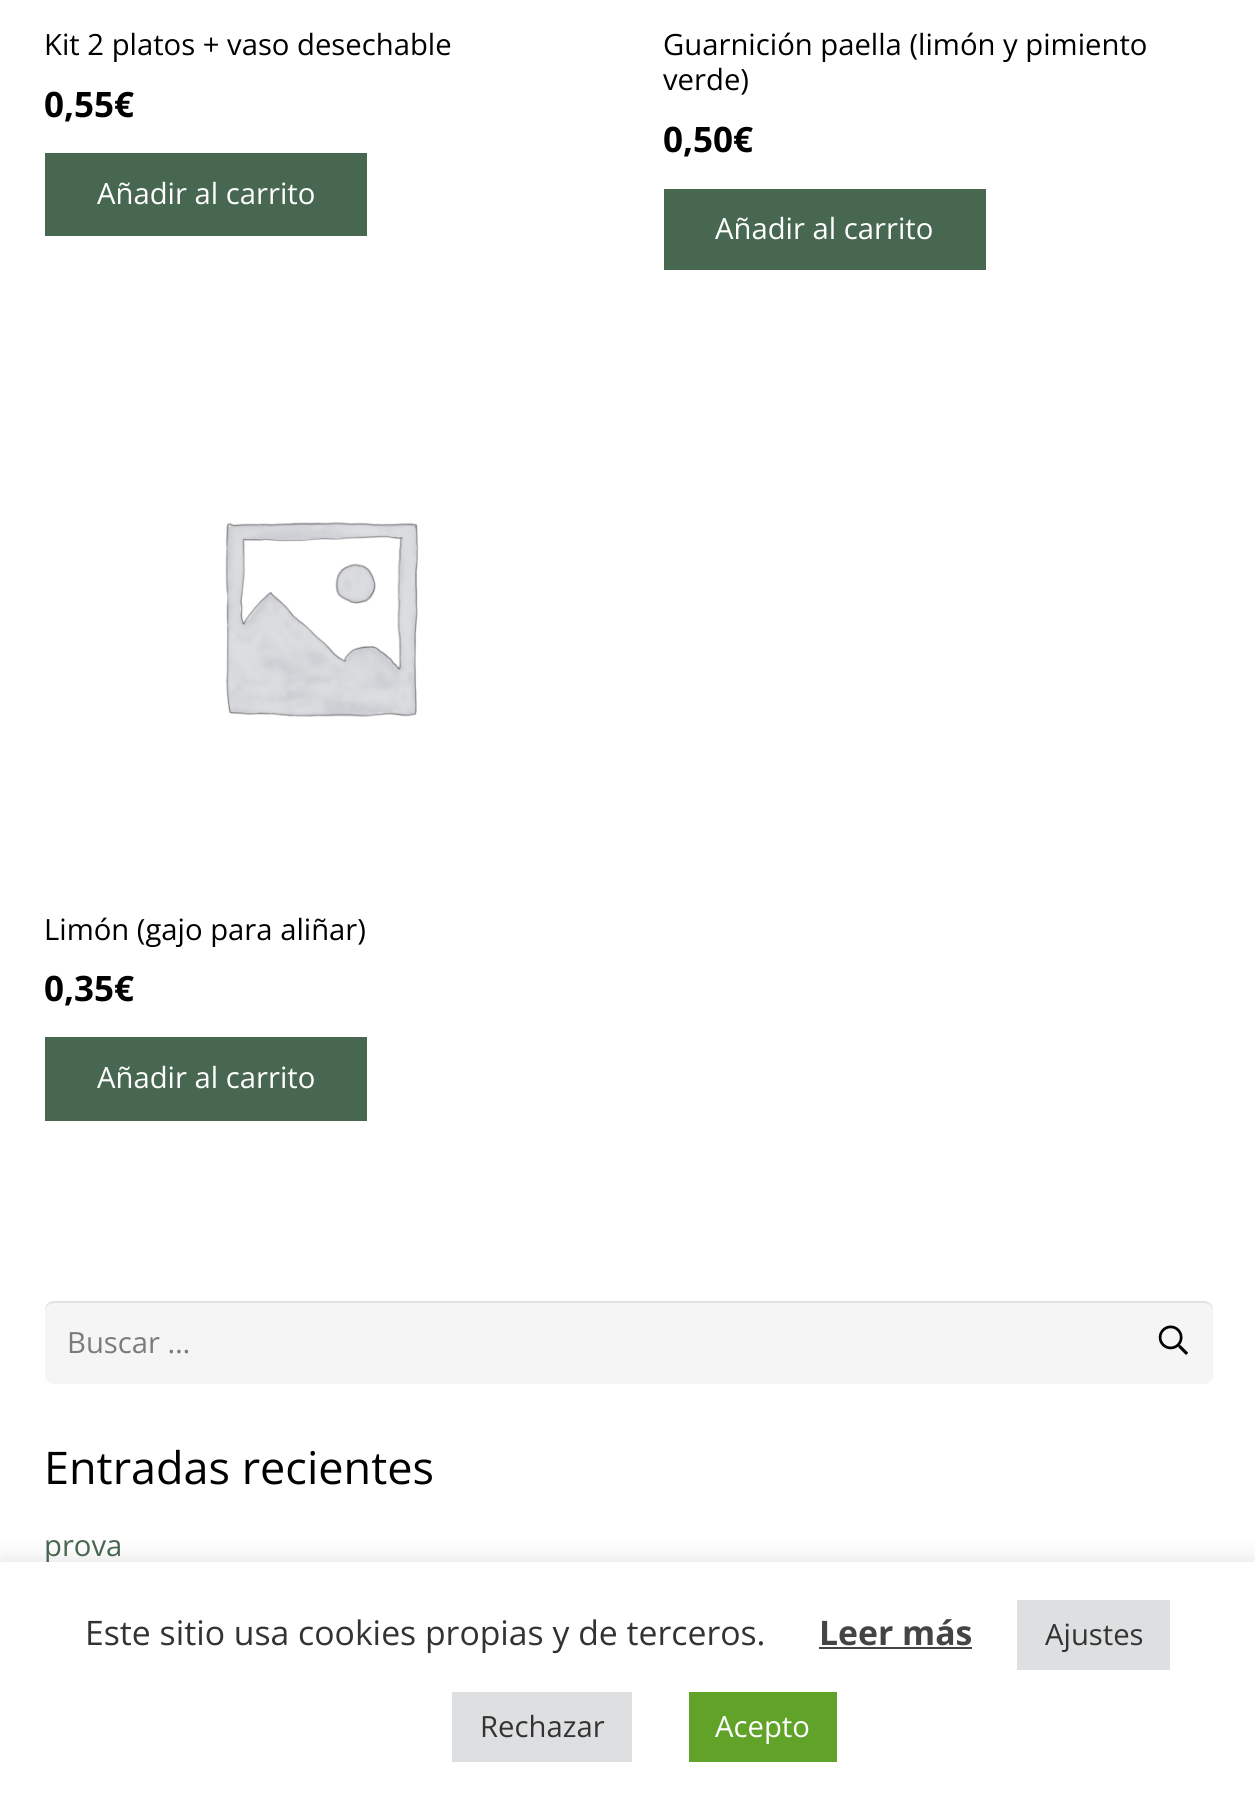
#include <cairo/cairo.h>
#include <math.h>
#include <stddef.h>


static void rounded_rect(cairo_t *cr, double x, double y, double w, double h, double r) {
  cairo_new_sub_path(cr);
  cairo_arc(cr, x + w - r, y + h - r, r, 0, M_PI / 2);
  cairo_arc(cr, x + r, y + h - r, r, M_PI / 2, M_PI);
  cairo_arc(cr, x + r, y + r, r, M_PI, 1.5 * M_PI);
  cairo_arc(cr, x + w - r, y + r, r, 1.5 * M_PI, 2 * M_PI);
  cairo_close_path(cr);
}

static void draw_shadow(cairo_t *cr, double x, double y, double w, double h, double r, double blur, double alpha) {
  cairo_push_group_with_content(cr, CAIRO_CONTENT_ALPHA);
  cairo_set_operator(cr, CAIRO_OPERATOR_SOURCE);
  for (int i = 15; i >= -15 && fmin(w, h) + blur * i / 3 > 0; i -= 2) {
    double e = blur * i / 6;
    cairo_set_source_rgba(cr, 0, 0, 0, alpha * erfc((i - 1) / 8.5) / 2);
    rounded_rect(cr, x - e, y - e, w + 2 * e, h + 2 * e, fmax(0, fmin(r + e + blur * .6, fmin(w, h) / 2 + e)));
    cairo_fill(cr);
  }
  cairo_pattern_t *soft = cairo_pop_group(cr);
  cairo_mask(cr, soft);
  cairo_pattern_destroy(soft);
}

static void draw_image(cairo_t *cr, const char *path, double x, double y, double w, double h) {
  cairo_surface_t *image = cairo_image_surface_create_from_png(path);
  cairo_save(cr);
  cairo_set_source_surface(cr, image, x, y);
  cairo_rectangle(cr, x, y, w, h);
  cairo_fill(cr);
  cairo_restore(cr);
  cairo_surface_destroy(image);
}

static void draw(cairo_t *cr) {
  cairo_set_source_rgb(cr, 1, 1, 1);
  cairo_paint(cr);
  cairo_set_source_rgb(cr, 72 / 255.0, 103 / 255.0, 80 / 255.0);
  cairo_rectangle(cr, 45, 153, 322, 83);
  cairo_fill(cr);
  cairo_rectangle(cr, 664, 189, 322, 81);
  cairo_fill(cr);
  draw_image(cr, "images/1.png", 225, 522, 194, 195);
  cairo_rectangle(cr, 45, 1037, 322, 84);
  cairo_fill(cr);
  cairo_set_source_rgb(cr, 245 / 255.0, 245 / 255.0, 245 / 255.0);
  rounded_rect(cr, 45, 1301, 1168, 83, 9);
  cairo_fill(cr);
  cairo_set_source_rgba(cr, 0, 0, 0, 0.08);
  cairo_new_path(cr);
  cairo_move_to(cr, 54, 1303);
  cairo_line_to(cr, 1204, 1303);
  cairo_curve_to(cr, 1209, 1303, 1213, 1307, 1213, 1312);
  cairo_line_to(cr, 1213, 1310);
  cairo_curve_to(cr, 1213, 1305, 1209, 1301, 1204, 1301);
  cairo_line_to(cr, 54, 1301);
  cairo_curve_to(cr, 49, 1301, 45, 1305, 45, 1310);
  cairo_line_to(cr, 45, 1312);
  cairo_curve_to(cr, 45, 1307, 49, 1303, 54, 1303);
  cairo_close_path(cr);
  cairo_fill(cr);
  draw_image(cr, "images/2.png", 1158, 1325, 30, 30);
  cairo_set_source_rgb(cr, 172 / 255.0, 171 / 255.0, 171 / 255.0);
  draw_shadow(cr, 0, 1559, 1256, 239, 0, 11, 0.3);
  cairo_select_font_face(cr, "Open Sans", CAIRO_FONT_SLANT_NORMAL, CAIRO_FONT_WEIGHT_NORMAL);
  cairo_set_font_size(cr, 29.25);
  cairo_set_source_rgb(cr, 0, 0, 0);
  cairo_move_to(cr, 44, 55);
  cairo_show_text(cr, "Kit 2 platos + vaso desechable");
  cairo_select_font_face(cr, "Open Sans", CAIRO_FONT_SLANT_NORMAL, CAIRO_FONT_WEIGHT_BOLD);
  cairo_set_font_size(cr, 35);
  cairo_move_to(cr, 44, 117);
  cairo_show_text(cr, "0,55€");
  cairo_select_font_face(cr, "Open Sans", CAIRO_FONT_SLANT_NORMAL, CAIRO_FONT_WEIGHT_NORMAL);
  cairo_set_font_size(cr, 29.25);
  cairo_set_source_rgb(cr, 1, 1, 1);
  cairo_move_to(cr, 97, 204);
  cairo_show_text(cr, "Añadir al carrito");
  cairo_set_source_rgb(cr, 0, 0, 0);
  cairo_move_to(cr, 663, 55);
  cairo_show_text(cr, "Guarnición paella (limón y pimiento");
  cairo_move_to(cr, 663, 90);
  cairo_show_text(cr, "verde)");
  cairo_select_font_face(cr, "Open Sans", CAIRO_FONT_SLANT_NORMAL, CAIRO_FONT_WEIGHT_BOLD);
  cairo_set_font_size(cr, 35);
  cairo_move_to(cr, 663, 152);
  cairo_show_text(cr, "0,50€");
  cairo_select_font_face(cr, "Open Sans", CAIRO_FONT_SLANT_NORMAL, CAIRO_FONT_WEIGHT_NORMAL);
  cairo_set_font_size(cr, 29.25);
  cairo_set_source_rgb(cr, 1, 1, 1);
  cairo_move_to(cr, 715, 239);
  cairo_show_text(cr, "Añadir al carrito");
  cairo_set_source_rgb(cr, 0, 0, 0);
  cairo_move_to(cr, 44, 940);
  cairo_show_text(cr, "Limón (gajo para aliñar)");
  cairo_select_font_face(cr, "Open Sans", CAIRO_FONT_SLANT_NORMAL, CAIRO_FONT_WEIGHT_BOLD);
  cairo_set_font_size(cr, 35);
  cairo_move_to(cr, 44, 1001);
  cairo_show_text(cr, "0,35€");
  cairo_select_font_face(cr, "Open Sans", CAIRO_FONT_SLANT_NORMAL, CAIRO_FONT_WEIGHT_NORMAL);
  cairo_set_font_size(cr, 29.25);
  cairo_set_source_rgb(cr, 1, 1, 1);
  cairo_move_to(cr, 97, 1088);
  cairo_show_text(cr, "Añadir al carrito");
  cairo_set_source_rgb(cr, 123 / 255.0, 123 / 255.0, 123 / 255.0);
  cairo_move_to(cr, 67, 1353);
  cairo_show_text(cr, "Buscar …");
  cairo_set_font_size(cr, 45);
  cairo_set_source_rgb(cr, 0, 0, 0);
  cairo_move_to(cr, 44, 1484);
  cairo_show_text(cr, "Entradas recientes");
  cairo_set_font_size(cr, 29.25);
  cairo_set_source_rgb(cr, 72 / 255.0, 103 / 255.0, 80 / 255.0);
  cairo_move_to(cr, 44, 1556);
  cairo_show_text(cr, "prova");
  cairo_set_source_rgb(cr, 1, 1, 1);
  cairo_rectangle(cr, 0, 1562, 1255, 237);
  cairo_fill(cr);
  cairo_set_font_size(cr, 33.75);
  cairo_set_source_rgb(cr, 51 / 255.0, 51 / 255.0, 51 / 255.0);
  cairo_move_to(cr, 85, 1645);
  cairo_show_text(cr, "Este sitio usa cookies propias y de terceros.");
  cairo_select_font_face(cr, "Open Sans", CAIRO_FONT_SLANT_NORMAL, CAIRO_FONT_WEIGHT_BOLD);
  cairo_set_source_rgb(cr, 68 / 255.0, 68 / 255.0, 68 / 255.0);
  cairo_move_to(cr, 819, 1645);
  cairo_show_text(cr, "Leer más");
  cairo_rectangle(cr, 819, 1647, 153, 2);
  cairo_fill(cr);
  cairo_set_source_rgb(cr, 222 / 255.0, 223 / 255.0, 224 / 255.0);
  cairo_rectangle(cr, 1017, 1600, 153, 70);
  cairo_fill(cr);
  cairo_select_font_face(cr, "Open Sans", CAIRO_FONT_SLANT_NORMAL, CAIRO_FONT_WEIGHT_NORMAL);
  cairo_set_font_size(cr, 29.25);
  cairo_set_source_rgb(cr, 51 / 255.0, 51 / 255.0, 51 / 255.0);
  cairo_move_to(cr, 1045, 1645);
  cairo_show_text(cr, "Ajustes");
  cairo_set_source_rgb(cr, 222 / 255.0, 223 / 255.0, 224 / 255.0);
  cairo_rectangle(cr, 452, 1692, 180, 70);
  cairo_fill(cr);
  cairo_set_source_rgb(cr, 51 / 255.0, 51 / 255.0, 51 / 255.0);
  cairo_move_to(cr, 480, 1737);
  cairo_show_text(cr, "Rechazar");
  cairo_set_source_rgb(cr, 97 / 255.0, 162 / 255.0, 41 / 255.0);
  cairo_rectangle(cr, 689, 1692, 148, 70);
  cairo_fill(cr);
  cairo_set_source_rgb(cr, 1, 1, 1);
  cairo_move_to(cr, 715, 1737);
  cairo_show_text(cr, "Acepto");
}

int main(void) {
  cairo_surface_t *surface = cairo_image_surface_create(CAIRO_FORMAT_RGB24, 1255, 1799);
  cairo_t *cr = cairo_create(surface);
  cairo_font_options_t *options = cairo_font_options_create();
  cairo_font_options_set_hint_metrics(options, CAIRO_HINT_METRICS_OFF);
  cairo_font_options_set_hint_style(options, CAIRO_HINT_STYLE_NONE);
  cairo_set_font_options(cr, options);
  cairo_set_miter_limit(cr, 4);
  draw(cr);
  cairo_surface_write_to_png(surface, "out.png");
  cairo_font_options_destroy(options);
  cairo_destroy(cr);
  cairo_surface_destroy(surface);
  return 0;
}
